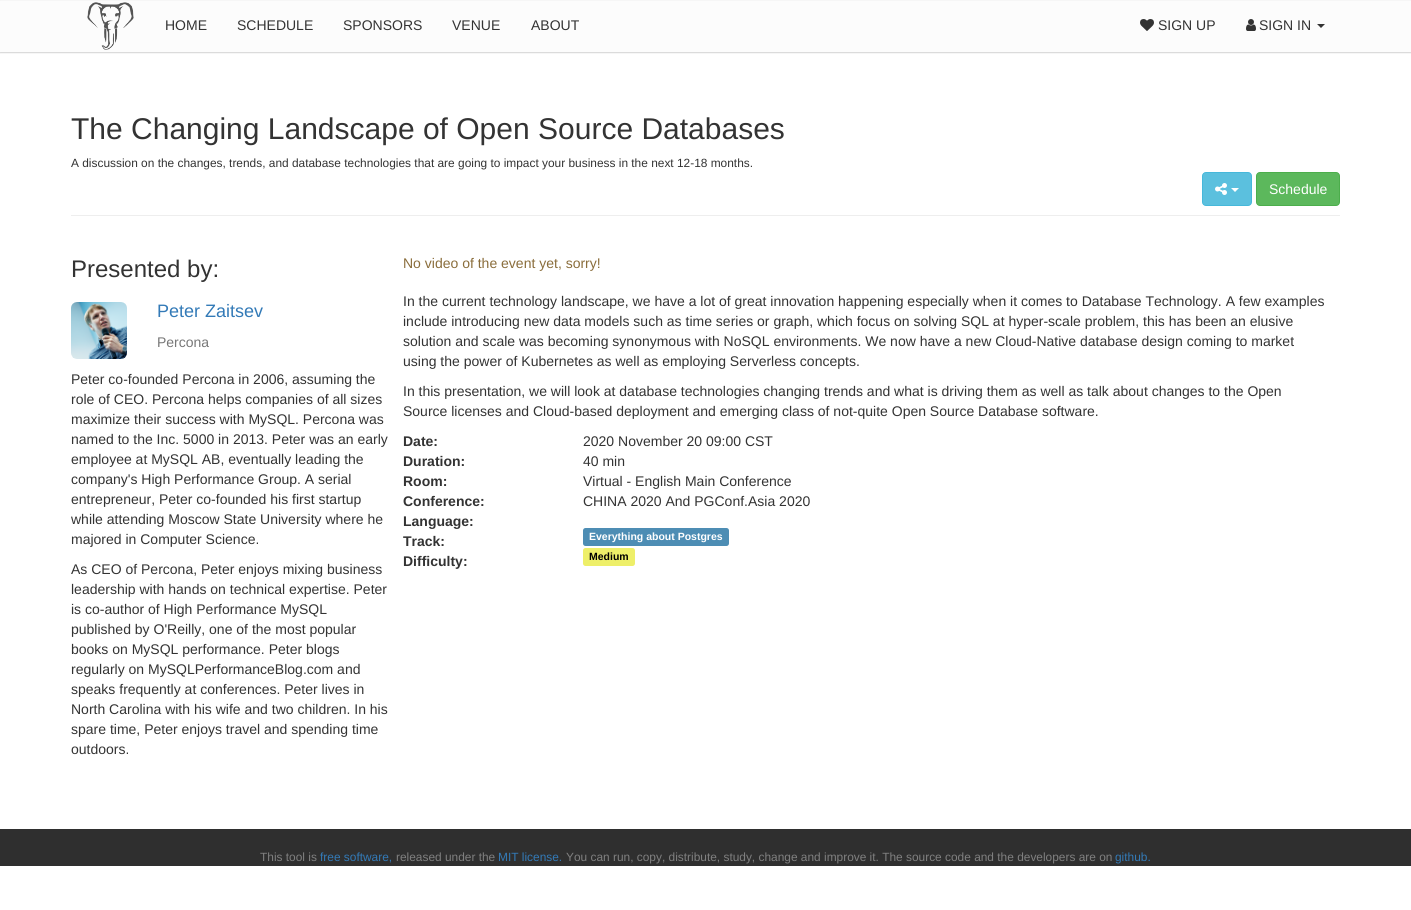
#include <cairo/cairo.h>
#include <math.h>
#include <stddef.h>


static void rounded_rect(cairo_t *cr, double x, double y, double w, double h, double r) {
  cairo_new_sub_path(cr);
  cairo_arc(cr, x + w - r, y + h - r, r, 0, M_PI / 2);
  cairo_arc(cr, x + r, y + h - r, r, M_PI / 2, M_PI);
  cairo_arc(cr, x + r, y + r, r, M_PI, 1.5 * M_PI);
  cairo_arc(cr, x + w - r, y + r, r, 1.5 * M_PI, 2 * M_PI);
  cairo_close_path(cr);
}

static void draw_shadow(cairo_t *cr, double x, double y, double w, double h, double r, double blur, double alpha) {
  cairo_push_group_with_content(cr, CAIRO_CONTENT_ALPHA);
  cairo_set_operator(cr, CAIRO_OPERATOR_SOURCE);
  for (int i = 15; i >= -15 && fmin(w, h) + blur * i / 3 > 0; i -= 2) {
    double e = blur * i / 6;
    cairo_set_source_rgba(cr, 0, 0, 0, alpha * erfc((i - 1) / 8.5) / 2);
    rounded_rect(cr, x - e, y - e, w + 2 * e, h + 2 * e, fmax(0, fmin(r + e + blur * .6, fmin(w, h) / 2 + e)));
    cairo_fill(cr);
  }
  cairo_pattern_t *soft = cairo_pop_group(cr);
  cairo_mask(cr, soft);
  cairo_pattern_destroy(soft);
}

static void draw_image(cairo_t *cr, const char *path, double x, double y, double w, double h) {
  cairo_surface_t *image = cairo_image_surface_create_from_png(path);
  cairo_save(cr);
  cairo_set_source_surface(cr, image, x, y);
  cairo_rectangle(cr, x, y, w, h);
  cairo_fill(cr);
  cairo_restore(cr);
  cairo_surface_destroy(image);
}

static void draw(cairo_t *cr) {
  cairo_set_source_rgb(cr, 1, 1, 1);
  cairo_paint(cr);
  cairo_set_source_rgb(cr, 0, 0, 0);
  draw_shadow(cr, 0, 1, 1411, 52, 0, 0.5, 0.17);
  cairo_set_source_rgb(cr, 252 / 255.0, 252 / 255.0, 252 / 255.0);
  cairo_rectangle(cr, 0, 1, 1411, 51);
  cairo_fill(cr);
  draw_image(cr, "images/1.png", 87, 2, 47, 48);
  draw_image(cr, "images/2.png", 1140, 19, 14, 12);
  draw_image(cr, "images/3.png", 1246, 19, 10, 12);
  cairo_set_source_rgb(cr, 51 / 255.0, 51 / 255.0, 51 / 255.0);
  cairo_new_path(cr);
  cairo_move_to(cr, 1317, 24);
  cairo_line_to(cr, 1325, 24);
  cairo_line_to(cr, 1321, 28);
  cairo_close_path(cr);
  cairo_fill(cr);
  cairo_set_source_rgb(cr, 238 / 255.0, 238 / 255.0, 238 / 255.0);
  cairo_rectangle(cr, 71, 215, 1269, 1);
  cairo_fill(cr);
  cairo_set_source_rgb(cr, 91 / 255.0, 192 / 255.0, 222 / 255.0);
  rounded_rect(cr, 1202.5, 172.5, 49, 33, 3.5);
  cairo_fill_preserve(cr);
  cairo_set_source_rgb(cr, 70 / 255.0, 184 / 255.0, 218 / 255.0);
  cairo_set_line_width(cr, 1);
  cairo_stroke(cr);
  draw_image(cr, "images/4.png", 1215, 183, 12, 12);
  cairo_set_source_rgb(cr, 1, 1, 1);
  cairo_new_path(cr);
  cairo_move_to(cr, 1231, 188);
  cairo_line_to(cr, 1239, 188);
  cairo_line_to(cr, 1235, 192);
  cairo_close_path(cr);
  cairo_fill(cr);
  cairo_set_source_rgb(cr, 92 / 255.0, 184 / 255.0, 92 / 255.0);
  rounded_rect(cr, 1256.5, 172.5, 83, 33, 3.5);
  cairo_fill_preserve(cr);
  cairo_set_source_rgb(cr, 76 / 255.0, 174 / 255.0, 76 / 255.0);
  cairo_stroke(cr);
  draw_image(cr, "images/5.png", 71, 302, 56, 57);
  cairo_set_source_rgb(cr, 77 / 255.0, 141 / 255.0, 180 / 255.0);
  rounded_rect(cr, 583, 528, 146, 18, 2.5);
  cairo_fill(cr);
  cairo_set_source_rgb(cr, 238 / 255.0, 239 / 255.0, 105 / 255.0);
  rounded_rect(cr, 583, 548, 52, 18, 2.5);
  cairo_fill(cr);
  cairo_set_source_rgb(cr, 47 / 255.0, 47 / 255.0, 47 / 255.0);
  cairo_rectangle(cr, 0, 829, 1411, 37);
  cairo_fill(cr);
  cairo_select_font_face(cr, "Liberation Sans", CAIRO_FONT_SLANT_NORMAL, CAIRO_FONT_WEIGHT_NORMAL);
  cairo_set_font_size(cr, 14);
  cairo_set_source_rgb(cr, 51 / 255.0, 51 / 255.0, 51 / 255.0);
  cairo_move_to(cr, 165, 30);
  cairo_show_text(cr, "HOME");
  cairo_move_to(cr, 237, 30);
  cairo_show_text(cr, "SCHEDULE");
  cairo_move_to(cr, 343, 30);
  cairo_show_text(cr, "SPONSORS");
  cairo_move_to(cr, 452, 30);
  cairo_show_text(cr, "VENUE");
  cairo_move_to(cr, 531, 30);
  cairo_show_text(cr, "ABOUT");
  cairo_move_to(cr, 1158, 30);
  cairo_show_text(cr, "SIGN UP");
  cairo_move_to(cr, 1259, 30);
  cairo_show_text(cr, "SIGN IN");
  cairo_set_font_size(cr, 30);
  cairo_move_to(cr, 71, 139);
  cairo_show_text(cr, "The Changing Landscape of Open Source Databases");
  cairo_set_font_size(cr, 11.9);
  cairo_move_to(cr, 71, 167);
  cairo_show_text(cr, "A discussion on the changes, trends, and database technologies that are going to impact your business in the next 12-18 months.");
  cairo_set_font_size(cr, 14);
  cairo_set_source_rgb(cr, 1, 1, 1);
  cairo_move_to(cr, 1269, 194);
  cairo_show_text(cr, "Schedule");
  cairo_set_font_size(cr, 24);
  cairo_set_source_rgb(cr, 51 / 255.0, 51 / 255.0, 51 / 255.0);
  cairo_move_to(cr, 71, 277);
  cairo_show_text(cr, "Presented by:");
  cairo_set_font_size(cr, 18);
  cairo_set_source_rgb(cr, 51 / 255.0, 122 / 255.0, 183 / 255.0);
  cairo_move_to(cr, 157, 317);
  cairo_show_text(cr, "Peter Zaitsev");
  cairo_set_font_size(cr, 14);
  cairo_set_source_rgb(cr, 119 / 255.0, 119 / 255.0, 119 / 255.0);
  cairo_move_to(cr, 157, 347);
  cairo_show_text(cr, "Percona");
  cairo_set_source_rgb(cr, 51 / 255.0, 51 / 255.0, 51 / 255.0);
  cairo_move_to(cr, 71, 384);
  cairo_show_text(cr, "Peter co-founded Percona in 2006, assuming the");
  cairo_move_to(cr, 71, 404);
  cairo_show_text(cr, "role of CEO. Percona helps companies of all sizes");
  cairo_move_to(cr, 71, 424);
  cairo_show_text(cr, "maximize their success with MySQL. Percona was");
  cairo_move_to(cr, 71, 444);
  cairo_show_text(cr, "named to the Inc. 5000 in 2013. Peter was an early");
  cairo_move_to(cr, 71, 464);
  cairo_show_text(cr, "employee at MySQL AB, eventually leading the");
  cairo_move_to(cr, 71, 484);
  cairo_show_text(cr, "company's High Performance Group. A serial");
  cairo_move_to(cr, 71, 504);
  cairo_show_text(cr, "entrepreneur, Peter co-founded his first startup");
  cairo_move_to(cr, 71, 524);
  cairo_show_text(cr, "while attending Moscow State University where he");
  cairo_move_to(cr, 71, 544);
  cairo_show_text(cr, "majored in Computer Science.");
  cairo_move_to(cr, 71, 574);
  cairo_show_text(cr, "As CEO of Percona, Peter enjoys mixing business");
  cairo_move_to(cr, 71, 594);
  cairo_show_text(cr, "leadership with hands on technical expertise. Peter");
  cairo_move_to(cr, 71, 614);
  cairo_show_text(cr, "is co-author of High Performance MySQL");
  cairo_move_to(cr, 71, 634);
  cairo_show_text(cr, "published by O'Reilly, one of the most popular");
  cairo_move_to(cr, 71, 654);
  cairo_show_text(cr, "books on MySQL performance. Peter blogs");
  cairo_move_to(cr, 71, 674);
  cairo_show_text(cr, "regularly on MySQLPerformanceBlog.com and");
  cairo_move_to(cr, 71, 694);
  cairo_show_text(cr, "speaks frequently at conferences. Peter lives in");
  cairo_move_to(cr, 71, 714);
  cairo_show_text(cr, "North Carolina with his wife and two children. In his");
  cairo_move_to(cr, 71, 734);
  cairo_show_text(cr, "spare time, Peter enjoys travel and spending time");
  cairo_move_to(cr, 71, 754);
  cairo_show_text(cr, "outdoors.");
  cairo_set_source_rgb(cr, 138 / 255.0, 109 / 255.0, 59 / 255.0);
  cairo_move_to(cr, 403, 268);
  cairo_show_text(cr, "No video of the event yet, sorry!");
  cairo_set_source_rgb(cr, 51 / 255.0, 51 / 255.0, 51 / 255.0);
  cairo_move_to(cr, 403, 306);
  cairo_show_text(cr, "In the current technology landscape, we have a lot of great innovation happening especially when it comes to Database Technology. A few examples");
  cairo_move_to(cr, 403, 326);
  cairo_show_text(cr, "include introducing new data models such as time series or graph, which focus on solving SQL at hyper-scale problem, this has been an elusive");
  cairo_move_to(cr, 403, 346);
  cairo_show_text(cr, "solution and scale was becoming synonymous with NoSQL environments. We now have a new Cloud-Native database design coming to market");
  cairo_move_to(cr, 403, 366);
  cairo_show_text(cr, "using the power of Kubernetes as well as employing Serverless concepts.");
  cairo_move_to(cr, 403, 396);
  cairo_show_text(cr, "In this presentation, we will look at database technologies changing trends and what is driving them as well as talk about changes to the Open");
  cairo_move_to(cr, 403, 416);
  cairo_show_text(cr, "Source licenses and Cloud-based deployment and emerging class of not-quite Open Source Database software.");
  cairo_select_font_face(cr, "Liberation Sans", CAIRO_FONT_SLANT_NORMAL, CAIRO_FONT_WEIGHT_BOLD);
  cairo_move_to(cr, 403, 446);
  cairo_show_text(cr, "Date:");
  cairo_select_font_face(cr, "Liberation Sans", CAIRO_FONT_SLANT_NORMAL, CAIRO_FONT_WEIGHT_NORMAL);
  cairo_move_to(cr, 583, 446);
  cairo_show_text(cr, "2020 November 20 09:00 CST");
  cairo_select_font_face(cr, "Liberation Sans", CAIRO_FONT_SLANT_NORMAL, CAIRO_FONT_WEIGHT_BOLD);
  cairo_move_to(cr, 403, 466);
  cairo_show_text(cr, "Duration:");
  cairo_select_font_face(cr, "Liberation Sans", CAIRO_FONT_SLANT_NORMAL, CAIRO_FONT_WEIGHT_NORMAL);
  cairo_move_to(cr, 583, 466);
  cairo_show_text(cr, "40 min");
  cairo_select_font_face(cr, "Liberation Sans", CAIRO_FONT_SLANT_NORMAL, CAIRO_FONT_WEIGHT_BOLD);
  cairo_move_to(cr, 403, 486);
  cairo_show_text(cr, "Room:");
  cairo_select_font_face(cr, "Liberation Sans", CAIRO_FONT_SLANT_NORMAL, CAIRO_FONT_WEIGHT_NORMAL);
  cairo_move_to(cr, 583, 486);
  cairo_show_text(cr, "Virtual - English Main Conference");
  cairo_select_font_face(cr, "Liberation Sans", CAIRO_FONT_SLANT_NORMAL, CAIRO_FONT_WEIGHT_BOLD);
  cairo_move_to(cr, 403, 506);
  cairo_show_text(cr, "Conference:");
  cairo_select_font_face(cr, "Liberation Sans", CAIRO_FONT_SLANT_NORMAL, CAIRO_FONT_WEIGHT_NORMAL);
  cairo_move_to(cr, 583, 506);
  cairo_show_text(cr, "CHINA 2020 And PGConf.Asia 2020");
  cairo_select_font_face(cr, "Liberation Sans", CAIRO_FONT_SLANT_NORMAL, CAIRO_FONT_WEIGHT_BOLD);
  cairo_move_to(cr, 403, 526);
  cairo_show_text(cr, "Language:");
  cairo_move_to(cr, 403, 546);
  cairo_show_text(cr, "Track:");
  cairo_set_font_size(cr, 10.5);
  cairo_set_source_rgb(cr, 1, 1, 1);
  cairo_move_to(cr, 589, 540);
  cairo_show_text(cr, "Everything about Postgres");
  cairo_set_font_size(cr, 14);
  cairo_set_source_rgb(cr, 51 / 255.0, 51 / 255.0, 51 / 255.0);
  cairo_move_to(cr, 403, 566);
  cairo_show_text(cr, "Difficulty:");
  cairo_set_font_size(cr, 10.5);
  cairo_set_source_rgb(cr, 0, 0, 0);
  cairo_move_to(cr, 589, 560);
  cairo_show_text(cr, "Medium");
  cairo_select_font_face(cr, "Liberation Sans", CAIRO_FONT_SLANT_NORMAL, CAIRO_FONT_WEIGHT_NORMAL);
  cairo_set_font_size(cr, 11.9);
  cairo_set_source_rgb(cr, 128 / 255.0, 128 / 255.0, 128 / 255.0);
  cairo_move_to(cr, 260, 861);
  cairo_show_text(cr, "This tool is");
  cairo_set_source_rgb(cr, 51 / 255.0, 122 / 255.0, 183 / 255.0);
  cairo_move_to(cr, 320, 861);
  cairo_show_text(cr, "free software,");
  cairo_set_source_rgb(cr, 128 / 255.0, 128 / 255.0, 128 / 255.0);
  cairo_move_to(cr, 396, 861);
  cairo_show_text(cr, "released under the");
  cairo_set_source_rgb(cr, 51 / 255.0, 122 / 255.0, 183 / 255.0);
  cairo_move_to(cr, 498, 861);
  cairo_show_text(cr, "MIT license.");
  cairo_set_source_rgb(cr, 128 / 255.0, 128 / 255.0, 128 / 255.0);
  cairo_move_to(cr, 566, 861);
  cairo_show_text(cr, "You can run, copy, distribute, study, change and improve it. The source code and the developers are on");
  cairo_set_source_rgb(cr, 51 / 255.0, 122 / 255.0, 183 / 255.0);
  cairo_move_to(cr, 1115, 861);
  cairo_show_text(cr, "github.");
}

int main(void) {
  cairo_surface_t *surface = cairo_image_surface_create(CAIRO_FORMAT_RGB24, 1411, 910);
  cairo_t *cr = cairo_create(surface);
  cairo_font_options_t *options = cairo_font_options_create();
  cairo_font_options_set_hint_metrics(options, CAIRO_HINT_METRICS_OFF);
  cairo_font_options_set_hint_style(options, CAIRO_HINT_STYLE_NONE);
  cairo_set_font_options(cr, options);
  cairo_set_miter_limit(cr, 4);
  draw(cr);
  cairo_surface_write_to_png(surface, "out.png");
  cairo_font_options_destroy(options);
  cairo_destroy(cr);
  cairo_surface_destroy(surface);
  return 0;
}
